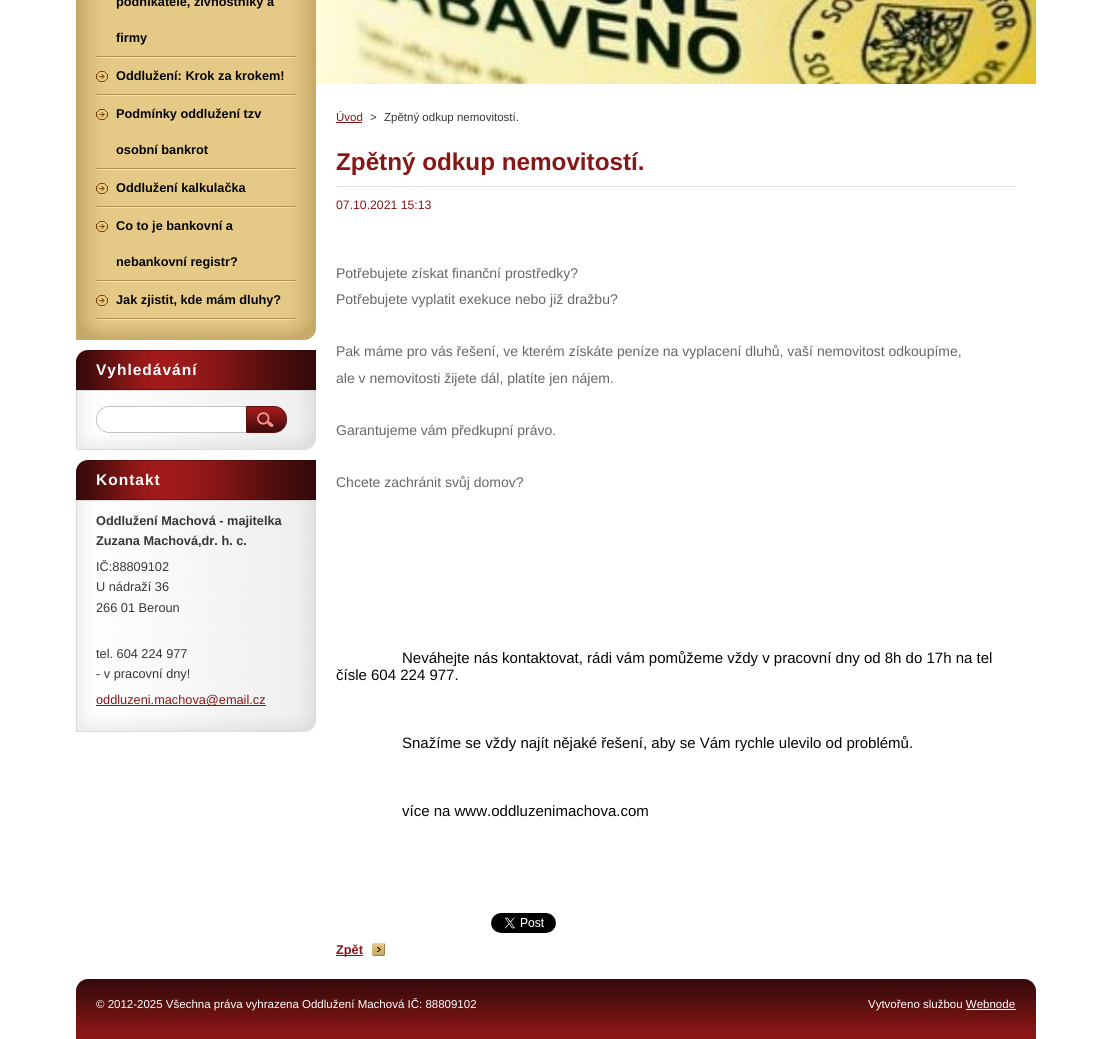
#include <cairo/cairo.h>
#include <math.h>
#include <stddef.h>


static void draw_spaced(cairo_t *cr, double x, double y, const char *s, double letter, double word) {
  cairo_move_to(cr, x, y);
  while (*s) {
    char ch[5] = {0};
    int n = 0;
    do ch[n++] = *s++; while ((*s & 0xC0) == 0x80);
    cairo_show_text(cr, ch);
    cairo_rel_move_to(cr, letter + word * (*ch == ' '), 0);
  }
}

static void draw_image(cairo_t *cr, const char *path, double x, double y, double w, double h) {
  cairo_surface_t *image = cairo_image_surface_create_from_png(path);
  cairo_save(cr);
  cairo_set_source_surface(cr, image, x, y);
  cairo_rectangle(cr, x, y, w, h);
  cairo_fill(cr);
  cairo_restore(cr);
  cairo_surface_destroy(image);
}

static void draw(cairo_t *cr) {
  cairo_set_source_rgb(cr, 1, 1, 1);
  cairo_paint(cr);
  draw_image(cr, "images/1.png", 76, 320, 240, 20);
  draw_image(cr, "images/2.png", 76, 0, 240, 320);
  draw_image(cr, "images/3.png", 96, 56, 200, 2);
  draw_image(cr, "images/3.png", 96, 94, 200, 2);
  draw_image(cr, "images/4.png", 96, 71, 12, 11);
  draw_image(cr, "images/3.png", 96, 168, 200, 2);
  draw_image(cr, "images/4.png", 96, 109, 12, 11);
  draw_image(cr, "images/3.png", 96, 206, 200, 2);
  draw_image(cr, "images/4.png", 96, 183, 12, 11);
  draw_image(cr, "images/3.png", 96, 280, 200, 2);
  draw_image(cr, "images/4.png", 96, 221, 12, 11);
  draw_image(cr, "images/3.png", 96, 318, 200, 2);
  draw_image(cr, "images/4.png", 96, 295, 12, 11);
  draw_image(cr, "images/5.png", 76, 433, 240, 17);
  draw_image(cr, "images/6.png", 76, 350, 240, 40);
  draw_image(cr, "images/7.png", 76, 391, 240, 42);
  cairo_set_source_rgb(cr, 219 / 255.0, 219 / 255.0, 219 / 255.0);
  cairo_rectangle(cr, 76, 390, 240, 1);
  cairo_fill(cr);
  draw_image(cr, "images/8.png", 96, 406, 150, 27);
  draw_image(cr, "images/9.png", 246, 406, 41, 27);
  draw_image(cr, "images/5.png", 76, 715, 240, 17);
  draw_image(cr, "images/6.png", 76, 460, 240, 40);
  draw_image(cr, "images/10.png", 76, 501, 240, 214);
  cairo_rectangle(cr, 76, 500, 240, 1);
  cairo_fill(cr);
  cairo_set_source_rgb(cr, 135 / 255.0, 22 / 255.0, 22 / 255.0);
  cairo_rectangle(cr, 96, 705, 170, 1);
  cairo_fill(cr);
  draw_image(cr, "images/11.png", 316, 0, 720, 84);
  cairo_rectangle(cr, 336, 122, 26, 1);
  cairo_fill(cr);
  cairo_set_source_rgb(cr, 225 / 255.0, 225 / 255.0, 225 / 255.0);
  cairo_rectangle(cr, 336, 186, 680, 1);
  cairo_fill(cr);
  draw_image(cr, "images/12.png", 491, 913, 65, 20);
  draw_image(cr, "images/13.png", 372, 943, 13, 13);
  cairo_set_source_rgb(cr, 135 / 255.0, 22 / 255.0, 22 / 255.0);
  cairo_rectangle(cr, 336, 955, 27, 1);
  cairo_fill(cr);
  draw_image(cr, "images/14.png", 76, 979, 960, 60);
  cairo_set_source_rgb(cr, 1, 1, 1);
  cairo_rectangle(cr, 966, 1009, 50, 1);
  cairo_fill(cr);
  cairo_select_font_face(cr, "Liberation Sans", CAIRO_FONT_SLANT_NORMAL, CAIRO_FONT_WEIGHT_BOLD);
  cairo_set_font_size(cr, 12.75);
  cairo_set_source_rgb(cr, 5 / 255.0, 5 / 255.0, 5 / 255.0);
  cairo_move_to(cr, 116, 6);
  cairo_show_text(cr, "podnikatele, živnostníky a");
  cairo_move_to(cr, 116, 42);
  cairo_show_text(cr, "firmy");
  cairo_move_to(cr, 116, 80);
  cairo_show_text(cr, "Oddlužení: Krok za krokem!");
  cairo_move_to(cr, 116, 118);
  cairo_show_text(cr, "Podmínky oddlužení tzv");
  cairo_move_to(cr, 116, 154);
  cairo_show_text(cr, "osobní bankrot");
  cairo_move_to(cr, 116, 192);
  cairo_show_text(cr, "Oddlužení kalkulačka");
  cairo_move_to(cr, 116, 230);
  cairo_show_text(cr, "Co to je bankovní a");
  cairo_move_to(cr, 116, 266);
  cairo_show_text(cr, "nebankovní registr?");
  cairo_move_to(cr, 116, 304);
  cairo_show_text(cr, "Jak zjistit, kde mám dluhy?");
  cairo_set_font_size(cr, 15.5);
  cairo_set_source_rgb(cr, 1, 1, 1);
  draw_spaced(cr, 96, 375, "Vyhledávání", 1, 0);
  draw_spaced(cr, 96, 485, "Kontakt", 1, 0);
  cairo_set_font_size(cr, 12.75);
  cairo_set_source_rgb(cr, 54 / 255.0, 54 / 255.0, 54 / 255.0);
  cairo_move_to(cr, 96, 525);
  cairo_show_text(cr, "Oddlužení Machová - majitelka");
  cairo_move_to(cr, 96, 545);
  cairo_show_text(cr, "Zuzana Machová,dr. h. c.");
  cairo_select_font_face(cr, "Liberation Sans", CAIRO_FONT_SLANT_NORMAL, CAIRO_FONT_WEIGHT_NORMAL);
  cairo_move_to(cr, 96, 571);
  cairo_show_text(cr, "IČ:88809102");
  cairo_move_to(cr, 96, 591);
  cairo_show_text(cr, "U nádraží 36");
  cairo_move_to(cr, 96, 612);
  cairo_show_text(cr, "266 01 Beroun");
  cairo_move_to(cr, 96, 658);
  cairo_show_text(cr, "tel. 604 224 977");
  cairo_move_to(cr, 96, 678);
  cairo_show_text(cr, "- v pracovní dny!");
  cairo_set_source_rgb(cr, 135 / 255.0, 22 / 255.0, 22 / 255.0);
  cairo_move_to(cr, 96, 704);
  cairo_show_text(cr, "oddluzeni.machova@email.cz");
  cairo_set_font_size(cr, 11.5);
  cairo_move_to(cr, 336, 121);
  cairo_show_text(cr, "Úvod");
  cairo_set_source_rgb(cr, 54 / 255.0, 54 / 255.0, 54 / 255.0);
  cairo_move_to(cr, 370, 121);
  cairo_show_text(cr, ">");
  cairo_move_to(cr, 384, 121);
  cairo_show_text(cr, "Zpětný odkup nemovitostí.");
  cairo_select_font_face(cr, "Liberation Sans", CAIRO_FONT_SLANT_NORMAL, CAIRO_FONT_WEIGHT_BOLD);
  cairo_set_font_size(cr, 24.25);
  cairo_set_source_rgb(cr, 135 / 255.0, 22 / 255.0, 22 / 255.0);
  cairo_move_to(cr, 336, 170);
  cairo_show_text(cr, "Zpětný odkup nemovitostí.");
  cairo_select_font_face(cr, "Liberation Sans", CAIRO_FONT_SLANT_NORMAL, CAIRO_FONT_WEIGHT_NORMAL);
  cairo_set_font_size(cr, 12.25);
  cairo_move_to(cr, 336, 209);
  cairo_show_text(cr, "07.10.2021 15:13");
  cairo_set_font_size(cr, 14);
  cairo_set_source_rgb(cr, 102 / 255.0, 102 / 255.0, 102 / 255.0);
  cairo_move_to(cr, 336, 278);
  cairo_show_text(cr, "Potřebujete získat finanční prostředky?");
  cairo_move_to(cr, 336, 304);
  cairo_show_text(cr, "Potřebujete vyplatit exekuce nebo již dražbu?");
  cairo_move_to(cr, 336, 356);
  cairo_show_text(cr, "Pak máme pro vás řešení, ve kterém získáte peníze na vyplacení dluhů, vaší nemovitost odkoupíme,");
  cairo_move_to(cr, 336, 383);
  cairo_show_text(cr, "ale v nemovitosti žijete dál, platíte jen nájem.");
  cairo_move_to(cr, 336, 435);
  cairo_show_text(cr, "Garantujeme vám předkupní právo.");
  cairo_move_to(cr, 336, 487);
  cairo_show_text(cr, "Chcete zachránit svůj domov?");
  cairo_set_font_size(cr, 15);
  cairo_set_source_rgb(cr, 5 / 255.0, 5 / 255.0, 5 / 255.0);
  cairo_move_to(cr, 402, 663);
  cairo_show_text(cr, "Neváhejte nás kontaktovat, rádi vám pomůžeme vždy v pracovní dny od 8h do 17h na tel");
  cairo_move_to(cr, 336, 680);
  cairo_show_text(cr, "čísle 604 224 977.");
  cairo_move_to(cr, 402, 748);
  cairo_show_text(cr, "Snažíme se vždy najít nějaké řešení, aby se Vám rychle ulevilo od problémů.");
  cairo_move_to(cr, 402, 816);
  cairo_show_text(cr, "více na www.oddluzenimachova.com");
  cairo_select_font_face(cr, "Liberation Sans", CAIRO_FONT_SLANT_NORMAL, CAIRO_FONT_WEIGHT_BOLD);
  cairo_set_font_size(cr, 12.75);
  cairo_set_source_rgb(cr, 135 / 255.0, 22 / 255.0, 22 / 255.0);
  cairo_move_to(cr, 336, 954);
  cairo_show_text(cr, "Zpět");
  cairo_select_font_face(cr, "Liberation Sans", CAIRO_FONT_SLANT_NORMAL, CAIRO_FONT_WEIGHT_NORMAL);
  cairo_set_font_size(cr, 11.5);
  cairo_set_source_rgb(cr, 1, 1, 1);
  cairo_move_to(cr, 96, 1008);
  cairo_show_text(cr, "© 2012-2025 Všechna práva vyhrazena Oddlužení Machová IČ: 88809102");
  cairo_move_to(cr, 868, 1008);
  cairo_show_text(cr, "Vytvořeno službou Webnode");
}

int main(void) {
  cairo_surface_t *surface = cairo_image_surface_create(CAIRO_FORMAT_RGB24, 1111, 1039);
  cairo_t *cr = cairo_create(surface);
  cairo_font_options_t *options = cairo_font_options_create();
  cairo_font_options_set_hint_metrics(options, CAIRO_HINT_METRICS_OFF);
  cairo_font_options_set_hint_style(options, CAIRO_HINT_STYLE_NONE);
  cairo_set_font_options(cr, options);
  cairo_set_miter_limit(cr, 4);
  draw(cr);
  cairo_surface_write_to_png(surface, "out.png");
  cairo_font_options_destroy(options);
  cairo_destroy(cr);
  cairo_surface_destroy(surface);
  return 0;
}
